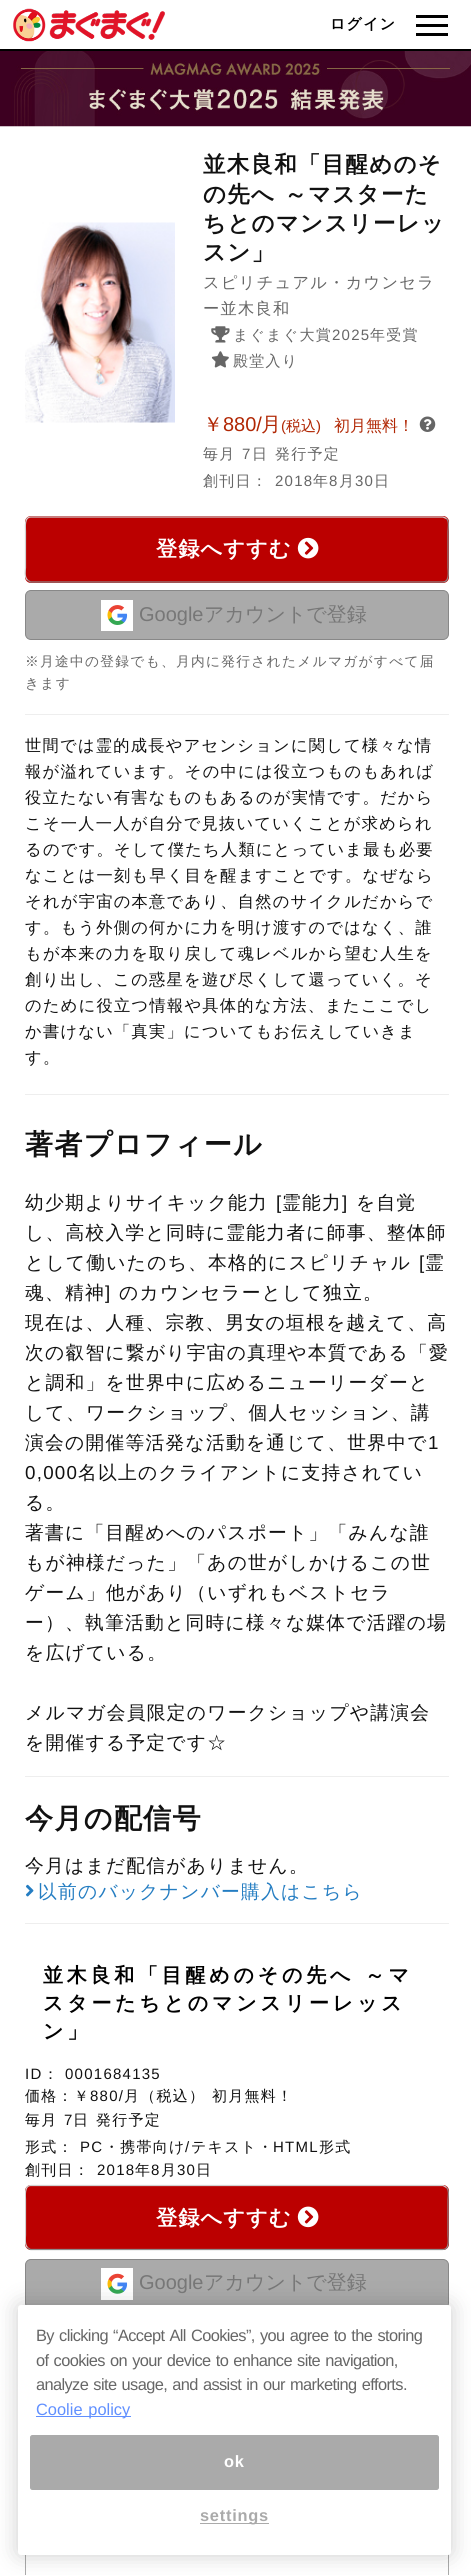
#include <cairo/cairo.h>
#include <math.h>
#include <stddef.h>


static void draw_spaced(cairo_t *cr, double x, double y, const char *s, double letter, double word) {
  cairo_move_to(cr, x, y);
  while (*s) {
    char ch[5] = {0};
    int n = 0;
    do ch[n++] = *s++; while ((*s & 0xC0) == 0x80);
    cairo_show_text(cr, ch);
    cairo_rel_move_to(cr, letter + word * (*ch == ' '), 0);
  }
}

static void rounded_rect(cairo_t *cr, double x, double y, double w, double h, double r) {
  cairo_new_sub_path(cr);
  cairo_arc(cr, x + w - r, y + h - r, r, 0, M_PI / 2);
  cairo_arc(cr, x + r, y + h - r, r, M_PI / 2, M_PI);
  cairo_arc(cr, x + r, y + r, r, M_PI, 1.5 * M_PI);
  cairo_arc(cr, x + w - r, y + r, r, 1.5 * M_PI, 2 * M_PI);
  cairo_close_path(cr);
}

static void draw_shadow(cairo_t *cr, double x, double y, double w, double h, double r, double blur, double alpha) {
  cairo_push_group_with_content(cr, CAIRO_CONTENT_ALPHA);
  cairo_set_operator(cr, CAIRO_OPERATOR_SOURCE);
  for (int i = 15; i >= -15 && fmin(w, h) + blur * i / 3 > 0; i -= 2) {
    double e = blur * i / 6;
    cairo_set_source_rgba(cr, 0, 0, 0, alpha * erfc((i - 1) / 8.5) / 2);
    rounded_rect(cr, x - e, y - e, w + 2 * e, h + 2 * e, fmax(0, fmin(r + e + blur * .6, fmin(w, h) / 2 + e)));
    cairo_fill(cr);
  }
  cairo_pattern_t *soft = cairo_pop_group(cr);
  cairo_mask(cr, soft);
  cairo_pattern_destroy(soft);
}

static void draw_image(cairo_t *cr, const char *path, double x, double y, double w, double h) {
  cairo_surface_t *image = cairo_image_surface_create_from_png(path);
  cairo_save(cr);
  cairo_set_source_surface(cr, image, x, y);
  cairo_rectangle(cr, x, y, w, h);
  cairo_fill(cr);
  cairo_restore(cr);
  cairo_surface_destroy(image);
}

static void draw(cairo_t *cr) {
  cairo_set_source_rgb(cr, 1, 1, 1);
  cairo_paint(cr);
  cairo_set_source_rgb(cr, 0, 0, 0);
  cairo_rectangle(cr, 0, 49, 471, 2);
  cairo_fill(cr);
  draw_image(cr, "images/1.png", 13, 8, 152, 34);
  cairo_rectangle(cr, 416, 15, 32, 3);
  cairo_fill(cr);
  cairo_rectangle(cr, 416, 24, 32, 3);
  cairo_fill(cr);
  cairo_rectangle(cr, 416, 33, 32, 3);
  cairo_fill(cr);
  draw_image(cr, "images/2.png", 0, 51, 471, 69);
  draw_image(cr, "images/3.png", 0, 120, 471, 7);
  draw_image(cr, "images/4.png", 25, 222, 150, 201);
  draw_image(cr, "images/5.png", 211, 326, 19, 17);
  draw_image(cr, "images/6.png", 211, 351, 18, 17);
  draw_image(cr, "images/7.png", 419, 416, 17, 16);
  cairo_set_source_rgb(cr, 187 / 255.0, 0, 0);
  rounded_rect(cr, 25, 516, 424, 67, 6);
  cairo_fill(cr);
  cairo_new_path(cr);
  cairo_move_to(cr, 446.5, 518.5);
  cairo_curve_to(cr, 449.5, 521.5, 448, 528.5, 448, 531.5);
  cairo_line_to(cr, 448, 567.5);
  cairo_curve_to(cr, 448, 571.5, 450, 582, 442.5, 582);
  cairo_line_to(cr, 30.5, 582);
  cairo_line_to(cr, 27.5, 580);
  cairo_set_source_rgb(cr, 139 / 255.0, 139 / 255.0, 139 / 255.0);
  cairo_set_line_width(cr, 1.2);
  cairo_stroke(cr);
  cairo_new_path(cr);
  cairo_move_to(cr, 27.5, 580);
  cairo_curve_to(cr, 24, 577, 25.5, 570, 25.5, 567.5);
  cairo_line_to(cr, 25.5, 531.5);
  cairo_curve_to(cr, 25.5, 527, 24, 517, 31, 517);
  cairo_line_to(cr, 443, 517);
  cairo_line_to(cr, 446.5, 518.5);
  cairo_set_source_rgb(cr, 208 / 255.0, 208 / 255.0, 208 / 255.0);
  cairo_stroke(cr);
  draw_image(cr, "images/8.png", 297, 537, 22, 22);
  cairo_set_source_rgb(cr, 170 / 255.0, 170 / 255.0, 170 / 255.0);
  rounded_rect(cr, 25.5, 590.5, 423, 49, 5.5);
  cairo_fill_preserve(cr);
  cairo_set_source_rgb(cr, 136 / 255.0, 136 / 255.0, 136 / 255.0);
  cairo_set_line_width(cr, 1);
  cairo_stroke(cr);
  cairo_set_source_rgb(cr, 1, 1, 1);
  cairo_rectangle(cr, 101, 600, 32, 31);
  cairo_fill(cr);
  draw_image(cr, "images/9.png", 107, 605, 21, 20);
  cairo_set_source_rgb(cr, 238 / 255.0, 238 / 255.0, 238 / 255.0);
  cairo_rectangle(cr, 25, 714, 424, 1);
  cairo_fill(cr);
  cairo_rectangle(cr, 25, 1094, 424, 1);
  cairo_fill(cr);
  cairo_rectangle(cr, 25, 1776, 424, 1);
  cairo_fill(cr);
  draw_image(cr, "images/10.png", 25, 1884, 9, 13);
  cairo_rectangle(cr, 25, 1923, 424, 1);
  cairo_fill(cr);
  cairo_set_source_rgb(cr, 187 / 255.0, 0, 0);
  rounded_rect(cr, 25, 2185, 424, 65, 6);
  cairo_fill(cr);
  cairo_new_path(cr);
  cairo_move_to(cr, 446.5, 2187.5);
  cairo_curve_to(cr, 449.5, 2190.5, 448, 2197, 448, 2200);
  cairo_line_to(cr, 448, 2235);
  cairo_curve_to(cr, 448, 2239, 450, 2249.5, 442.5, 2249.5);
  cairo_line_to(cr, 30.5, 2249.5);
  cairo_line_to(cr, 27.5, 2247.5);
  cairo_set_source_rgb(cr, 139 / 255.0, 139 / 255.0, 139 / 255.0);
  cairo_set_line_width(cr, 1.2);
  cairo_stroke(cr);
  cairo_save(cr);
  cairo_rectangle(cr, 25, 2044, 424, 332);
  cairo_clip(cr);
  cairo_new_path(cr);
  cairo_move_to(cr, 27.5, 2247.5);
  cairo_curve_to(cr, 24.5, 2244.5, 25.5, 2238, 25.5, 2235);
  cairo_line_to(cr, 25.5, 2200);
  cairo_curve_to(cr, 25.5, 2196, 24, 2185.5, 31, 2185.5);
  cairo_line_to(cr, 443, 2185.5);
  cairo_line_to(cr, 446.5, 2187.5);
  cairo_set_source_rgb(cr, 208 / 255.0, 208 / 255.0, 208 / 255.0);
  cairo_stroke(cr);
  cairo_restore(cr);
  draw_image(cr, "images/11.png", 297, 2206, 22, 22);
  cairo_set_source_rgb(cr, 170 / 255.0, 170 / 255.0, 170 / 255.0);
  rounded_rect(cr, 25.5, 2259.5, 423, 49, 5.5);
  cairo_fill_preserve(cr);
  cairo_set_source_rgb(cr, 136 / 255.0, 136 / 255.0, 136 / 255.0);
  cairo_set_line_width(cr, 1);
  cairo_stroke(cr);
  cairo_set_source_rgb(cr, 1, 1, 1);
  cairo_rectangle(cr, 101, 2268, 32, 32);
  cairo_fill(cr);
  draw_image(cr, "images/12.png", 107, 2273, 21, 21);
  cairo_rectangle(cr, 25.5, 2500.5, 423, 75);
  cairo_set_source_rgb(cr, 170 / 255.0, 170 / 255.0, 170 / 255.0);
  cairo_stroke(cr);
  cairo_set_source_rgb(cr, 0, 0, 0);
  draw_shadow(cr, 18, 2305, 433, 250, 3, 11, 0.2);
  cairo_set_source_rgb(cr, 1, 1, 1);
  rounded_rect(cr, 18, 2305, 433, 250, 3);
  cairo_fill(cr);
  cairo_set_source_rgb(cr, 97 / 255.0, 144 / 255.0, 1);
  cairo_rectangle(cr, 36, 2416, 95, 1);
  cairo_fill(cr);
  cairo_set_source_rgb(cr, 170 / 255.0, 170 / 255.0, 170 / 255.0);
  rounded_rect(cr, 30.5, 2435.5, 408, 54, 2);
  cairo_fill_preserve(cr);
  cairo_stroke(cr);
  cairo_rectangle(cr, 200, 2523, 69, 1);
  cairo_fill(cr);
  cairo_select_font_face(cr, "WenQuanYi Zen Hei", CAIRO_FONT_SLANT_NORMAL, CAIRO_FONT_WEIGHT_BOLD);
  cairo_set_font_size(cr, 15);
  cairo_set_source_rgb(cr, 0, 0, 0);
  draw_spaced(cr, 330, 29, "ログイン", 1.25, 0);
  cairo_set_font_size(cr, 22.5);
  cairo_set_source_rgb(cr, 17 / 255.0, 17 / 255.0, 17 / 255.0);
  draw_spaced(cr, 203, 172, "並木良和「目醒めのそ", 1.25, 0);
  draw_spaced(cr, 203, 202, "の先へ ～マスターた", 1.25, 1);
  draw_spaced(cr, 203, 231, "ちとのマンスリーレッ", 1.25, 0);
  draw_spaced(cr, 203, 260, "スン」", 1.25, 0);
  cairo_select_font_face(cr, "WenQuanYi Zen Hei Medium", CAIRO_FONT_SLANT_NORMAL, CAIRO_FONT_WEIGHT_NORMAL);
  cairo_set_font_size(cr, 16.25);
  cairo_set_source_rgb(cr, 102 / 255.0, 102 / 255.0, 102 / 255.0);
  draw_spaced(cr, 203, 288, "スピリチュアル・カウンセラ", 1.25, 0);
  draw_spaced(cr, 203, 314, "ー並木良和", 1.25, 0);
  cairo_set_font_size(cr, 15);
  draw_spaced(cr, 233, 340, "まぐまぐ大賞", 1.25, 0);
  cairo_select_font_face(cr, "Liberation Sans", CAIRO_FONT_SLANT_NORMAL, CAIRO_FONT_WEIGHT_NORMAL);
  draw_spaced(cr, 332, 340, "2025", 1.25, 0);
  cairo_select_font_face(cr, "WenQuanYi Zen Hei Medium", CAIRO_FONT_SLANT_NORMAL, CAIRO_FONT_WEIGHT_NORMAL);
  draw_spaced(cr, 370, 340, "年受賞", 1.25, 0);
  draw_spaced(cr, 233, 366, "殿堂入り", 1.25, 0);
  cairo_set_font_size(cr, 20);
  cairo_set_source_rgb(cr, 177 / 255.0, 39 / 255.0, 4 / 255.0);
  cairo_move_to(cr, 203, 431);
  cairo_show_text(cr, "￥");
  cairo_select_font_face(cr, "Liberation Sans", CAIRO_FONT_SLANT_NORMAL, CAIRO_FONT_WEIGHT_NORMAL);
  cairo_move_to(cr, 223, 431);
  cairo_show_text(cr, "880/");
  cairo_select_font_face(cr, "WenQuanYi Zen Hei Medium", CAIRO_FONT_SLANT_NORMAL, CAIRO_FONT_WEIGHT_NORMAL);
  cairo_move_to(cr, 261, 431);
  cairo_show_text(cr, "月");
  cairo_select_font_face(cr, "Liberation Sans", CAIRO_FONT_SLANT_NORMAL, CAIRO_FONT_WEIGHT_NORMAL);
  cairo_set_font_size(cr, 15);
  cairo_move_to(cr, 281, 431);
  cairo_show_text(cr, "(");
  cairo_select_font_face(cr, "WenQuanYi Zen Hei Medium", CAIRO_FONT_SLANT_NORMAL, CAIRO_FONT_WEIGHT_NORMAL);
  cairo_move_to(cr, 286, 431);
  cairo_show_text(cr, "税込");
  cairo_select_font_face(cr, "Liberation Sans", CAIRO_FONT_SLANT_NORMAL, CAIRO_FONT_WEIGHT_NORMAL);
  cairo_move_to(cr, 316, 431);
  cairo_show_text(cr, ")");
  cairo_select_font_face(cr, "WenQuanYi Zen Hei Medium", CAIRO_FONT_SLANT_NORMAL, CAIRO_FONT_WEIGHT_NORMAL);
  cairo_set_font_size(cr, 16);
  cairo_move_to(cr, 334, 431);
  cairo_show_text(cr, "初月無料！");
  cairo_set_font_size(cr, 15);
  cairo_set_source_rgb(cr, 102 / 255.0, 102 / 255.0, 102 / 255.0);
  draw_spaced(cr, 203, 459, "毎月", 1.25, 0);
  cairo_select_font_face(cr, "Liberation Sans", CAIRO_FONT_SLANT_NORMAL, CAIRO_FONT_WEIGHT_NORMAL);
  draw_spaced(cr, 242, 459, "7", 1.25, 0);
  cairo_select_font_face(cr, "WenQuanYi Zen Hei Medium", CAIRO_FONT_SLANT_NORMAL, CAIRO_FONT_WEIGHT_NORMAL);
  draw_spaced(cr, 252, 459, "日 発行予定", 1.25, 1);
  draw_spaced(cr, 203, 486, "創刊日：", 1.25, 0);
  cairo_select_font_face(cr, "Liberation Sans", CAIRO_FONT_SLANT_NORMAL, CAIRO_FONT_WEIGHT_NORMAL);
  draw_spaced(cr, 275, 486, "2018", 1.25, 0);
  cairo_select_font_face(cr, "WenQuanYi Zen Hei Medium", CAIRO_FONT_SLANT_NORMAL, CAIRO_FONT_WEIGHT_NORMAL);
  draw_spaced(cr, 313, 486, "年", 1.25, 0);
  cairo_select_font_face(cr, "Liberation Sans", CAIRO_FONT_SLANT_NORMAL, CAIRO_FONT_WEIGHT_NORMAL);
  draw_spaced(cr, 329, 486, "8", 1.25, 0);
  cairo_select_font_face(cr, "WenQuanYi Zen Hei Medium", CAIRO_FONT_SLANT_NORMAL, CAIRO_FONT_WEIGHT_NORMAL);
  draw_spaced(cr, 339, 486, "月", 1.25, 0);
  cairo_select_font_face(cr, "Liberation Sans", CAIRO_FONT_SLANT_NORMAL, CAIRO_FONT_WEIGHT_NORMAL);
  draw_spaced(cr, 355, 486, "30", 1.25, 0);
  cairo_select_font_face(cr, "WenQuanYi Zen Hei Medium", CAIRO_FONT_SLANT_NORMAL, CAIRO_FONT_WEIGHT_NORMAL);
  draw_spaced(cr, 374, 486, "日", 1.25, 0);
  cairo_select_font_face(cr, "WenQuanYi Zen Hei", CAIRO_FONT_SLANT_NORMAL, CAIRO_FONT_WEIGHT_BOLD);
  cairo_set_font_size(cr, 21.25);
  cairo_set_source_rgb(cr, 1, 1, 1);
  draw_spaced(cr, 156, 556, "登録へすすむ", 1, 0);
  cairo_select_font_face(cr, "Liberation Sans", CAIRO_FONT_SLANT_NORMAL, CAIRO_FONT_WEIGHT_NORMAL);
  cairo_set_font_size(cr, 20);
  cairo_set_source_rgb(cr, 119 / 255.0, 119 / 255.0, 119 / 255.0);
  cairo_move_to(cr, 139, 621);
  cairo_show_text(cr, "Google");
  cairo_select_font_face(cr, "WenQuanYi Zen Hei Medium", CAIRO_FONT_SLANT_NORMAL, CAIRO_FONT_WEIGHT_NORMAL);
  cairo_move_to(cr, 204, 621);
  cairo_show_text(cr, "アカウントで登録");
  cairo_set_font_size(cr, 13.75);
  cairo_set_source_rgb(cr, 102 / 255.0, 102 / 255.0, 102 / 255.0);
  draw_spaced(cr, 25, 666, "※月途中の登録でも、月内に発行されたメルマガがすべて届", 1.25, 0);
  draw_spaced(cr, 25, 688, "きます", 1.25, 0);
  cairo_set_font_size(cr, 16.25);
  cairo_set_source_rgb(cr, 17 / 255.0, 17 / 255.0, 17 / 255.0);
  draw_spaced(cr, 25, 751, "世間では霊的成長やアセンションに関して様々な情", 1.25, 0);
  draw_spaced(cr, 25, 777, "報が溢れています。その中には役立つものもあれば", 1.25, 0);
  draw_spaced(cr, 25, 803, "役立たない有害なものもあるのが実情です。だから", 1.25, 0);
  draw_spaced(cr, 25, 829, "こそ一人一人が自分で見抜いていくことが求められ", 1.25, 0);
  draw_spaced(cr, 25, 855, "るのです。そして僕たち人類にとっていま最も必要", 1.25, 0);
  draw_spaced(cr, 25, 881, "なことは一刻も早く目を醒ますことです。なぜなら", 1.25, 0);
  draw_spaced(cr, 25, 907, "それが宇宙の本意であり、自然のサイクルだからで", 1.25, 0);
  draw_spaced(cr, 25, 933, "す。もう外側の何かに力を明け渡すのではなく、誰", 1.25, 0);
  draw_spaced(cr, 25, 959, "もが本来の力を取り戻して魂レベルから望む人生を", 1.25, 0);
  draw_spaced(cr, 25, 985, "創り出し、この惑星を遊び尽くして還っていく。そ", 1.25, 0);
  draw_spaced(cr, 25, 1011, "のために役立つ情報や具体的な方法、またここでし", 1.25, 0);
  draw_spaced(cr, 25, 1037, "か書けない「真実」についてもお伝えしていきま", 1.25, 0);
  draw_spaced(cr, 25, 1063, "す。", 1.25, 0);
  cairo_select_font_face(cr, "WenQuanYi Zen Hei", CAIRO_FONT_SLANT_NORMAL, CAIRO_FONT_WEIGHT_BOLD);
  cairo_set_font_size(cr, 28.1);
  draw_spaced(cr, 25, 1154, "著者プロフィール", 1.25, 0);
  cairo_select_font_face(cr, "WenQuanYi Zen Hei Medium", CAIRO_FONT_SLANT_NORMAL, CAIRO_FONT_WEIGHT_NORMAL);
  cairo_set_font_size(cr, 18.75);
  draw_spaced(cr, 25, 1209, "幼少期よりサイキック能力", 1.25, 0);
  cairo_select_font_face(cr, "Liberation Sans", CAIRO_FONT_SLANT_NORMAL, CAIRO_FONT_WEIGHT_NORMAL);
  draw_spaced(cr, 276, 1209, "[", 1.25, 0);
  cairo_select_font_face(cr, "WenQuanYi Zen Hei Medium", CAIRO_FONT_SLANT_NORMAL, CAIRO_FONT_WEIGHT_NORMAL);
  draw_spaced(cr, 282, 1209, "霊能力", 1.25, 0);
  cairo_select_font_face(cr, "Liberation Sans", CAIRO_FONT_SLANT_NORMAL, CAIRO_FONT_WEIGHT_NORMAL);
  draw_spaced(cr, 342, 1209, "]", 1.25, 0);
  cairo_select_font_face(cr, "WenQuanYi Zen Hei Medium", CAIRO_FONT_SLANT_NORMAL, CAIRO_FONT_WEIGHT_NORMAL);
  draw_spaced(cr, 356, 1209, "を自覚", 1.25, 0);
  draw_spaced(cr, 25, 1239, "し、高校入学と同時に霊能力者に師事、整体師", 1.25, 0);
  draw_spaced(cr, 25, 1269, "として働いたのち、本格的にスピリチャル", 1.25, 0);
  cairo_select_font_face(cr, "Liberation Sans", CAIRO_FONT_SLANT_NORMAL, CAIRO_FONT_WEIGHT_NORMAL);
  draw_spaced(cr, 419, 1269, "[", 1.25, 0);
  cairo_select_font_face(cr, "WenQuanYi Zen Hei Medium", CAIRO_FONT_SLANT_NORMAL, CAIRO_FONT_WEIGHT_NORMAL);
  draw_spaced(cr, 425, 1269, "霊", 1.25, 0);
  draw_spaced(cr, 25, 1299, "魂、精神", 1.25, 0);
  cairo_select_font_face(cr, "Liberation Sans", CAIRO_FONT_SLANT_NORMAL, CAIRO_FONT_WEIGHT_NORMAL);
  draw_spaced(cr, 105, 1299, "]", 1.25, 0);
  cairo_select_font_face(cr, "WenQuanYi Zen Hei Medium", CAIRO_FONT_SLANT_NORMAL, CAIRO_FONT_WEIGHT_NORMAL);
  draw_spaced(cr, 119, 1299, "のカウンセラーとして独立。", 1.25, 0);
  draw_spaced(cr, 25, 1329, "現在は、人種、宗教、男女の垣根を越えて、高", 1.25, 0);
  draw_spaced(cr, 25, 1359, "次の叡智に繋がり宇宙の真理や本質である「愛", 1.25, 0);
  draw_spaced(cr, 25, 1389, "と調和」を世界中に広めるニューリーダーと", 1.25, 0);
  draw_spaced(cr, 25, 1419, "して、ワークショップ、個人セッション、講", 1.25, 0);
  draw_spaced(cr, 25, 1449, "演会の開催等活発な活動を通じて、世界中で", 1.25, 0);
  cairo_select_font_face(cr, "Liberation Sans", CAIRO_FONT_SLANT_NORMAL, CAIRO_FONT_WEIGHT_NORMAL);
  draw_spaced(cr, 428, 1449, "1", 1.25, 0);
  draw_spaced(cr, 25, 1479, "0,000", 1.25, 0);
  cairo_select_font_face(cr, "WenQuanYi Zen Hei Medium", CAIRO_FONT_SLANT_NORMAL, CAIRO_FONT_WEIGHT_NORMAL);
  draw_spaced(cr, 78, 1479, "名以上のクライアントに支持されてい", 1.25, 0);
  draw_spaced(cr, 25, 1509, "る。", 1.25, 0);
  draw_spaced(cr, 25, 1539, "著書に「目醒めへのパスポート」「みんな誰", 1.25, 0);
  draw_spaced(cr, 25, 1569, "もが神様だった」「あの世がしかけるこの世", 1.25, 0);
  draw_spaced(cr, 25, 1599, "ゲーム」他があり（いずれもベストセラ", 1.25, 0);
  draw_spaced(cr, 25, 1629, "ー）、執筆活動と同時に様々な媒体で活躍の場", 1.25, 0);
  draw_spaced(cr, 25, 1659, "を広げている。", 1.25, 0);
  draw_spaced(cr, 25, 1719, "メルマガ会員限定のワークショップや講演会", 1.25, 0);
  draw_spaced(cr, 25, 1749, "を開催する予定です☆", 1.25, 0);
  cairo_select_font_face(cr, "WenQuanYi Zen Hei", CAIRO_FONT_SLANT_NORMAL, CAIRO_FONT_WEIGHT_BOLD);
  cairo_set_font_size(cr, 28.1);
  draw_spaced(cr, 25, 1828, "今月の配信号", 1.25, 0);
  cairo_select_font_face(cr, "WenQuanYi Zen Hei Medium", CAIRO_FONT_SLANT_NORMAL, CAIRO_FONT_WEIGHT_NORMAL);
  cairo_set_font_size(cr, 18.75);
  draw_spaced(cr, 25, 1872, "今月はまだ配信がありません。", 1.25, 0);
  cairo_set_source_rgb(cr, 36 / 255.0, 125 / 255.0, 194 / 255.0);
  draw_spaced(cr, 38, 1898, "以前のバックナンバー購入はこちら", 1.25, 0);
  cairo_select_font_face(cr, "WenQuanYi Zen Hei", CAIRO_FONT_SLANT_NORMAL, CAIRO_FONT_WEIGHT_BOLD);
  cairo_set_font_size(cr, 20);
  cairo_set_source_rgb(cr, 0, 0, 0);
  draw_spaced(cr, 43, 1982, "並木良和「目醒めのその先へ ～マ", 3.75, 1);
  draw_spaced(cr, 43, 2010, "スターたちとのマンスリーレッス", 3.75, 0);
  draw_spaced(cr, 43, 2038, "ン」", 3.75, 0);
  cairo_select_font_face(cr, "Liberation Sans", CAIRO_FONT_SLANT_NORMAL, CAIRO_FONT_WEIGHT_NORMAL);
  cairo_set_font_size(cr, 15);
  cairo_set_source_rgb(cr, 17 / 255.0, 17 / 255.0, 17 / 255.0);
  draw_spaced(cr, 25, 2079, "ID", 1.25, 0);
  cairo_select_font_face(cr, "WenQuanYi Zen Hei Medium", CAIRO_FONT_SLANT_NORMAL, CAIRO_FONT_WEIGHT_NORMAL);
  draw_spaced(cr, 43, 2079, "：", 1.25, 0);
  cairo_select_font_face(cr, "Liberation Sans", CAIRO_FONT_SLANT_NORMAL, CAIRO_FONT_WEIGHT_NORMAL);
  draw_spaced(cr, 65, 2079, "0001684135", 1.25, 0);
  cairo_select_font_face(cr, "WenQuanYi Zen Hei Medium", CAIRO_FONT_SLANT_NORMAL, CAIRO_FONT_WEIGHT_NORMAL);
  draw_spaced(cr, 25, 2101, "価格：￥", 1.25, 0);
  cairo_select_font_face(cr, "Liberation Sans", CAIRO_FONT_SLANT_NORMAL, CAIRO_FONT_WEIGHT_NORMAL);
  draw_spaced(cr, 90, 2101, "880/", 1.25, 0);
  cairo_select_font_face(cr, "WenQuanYi Zen Hei Medium", CAIRO_FONT_SLANT_NORMAL, CAIRO_FONT_WEIGHT_NORMAL);
  draw_spaced(cr, 124, 2101, "月（税込）", 1.25, 0);
  draw_spaced(cr, 212, 2101, "初月無料！", 1.25, 0);
  draw_spaced(cr, 25, 2125, "毎月", 1.25, 0);
  cairo_select_font_face(cr, "Liberation Sans", CAIRO_FONT_SLANT_NORMAL, CAIRO_FONT_WEIGHT_NORMAL);
  draw_spaced(cr, 64, 2125, "7", 1.25, 0);
  cairo_select_font_face(cr, "WenQuanYi Zen Hei Medium", CAIRO_FONT_SLANT_NORMAL, CAIRO_FONT_WEIGHT_NORMAL);
  draw_spaced(cr, 73, 2125, "日 発行予定", 1.25, 1);
  draw_spaced(cr, 25, 2152, "形式：", 1.25, 0);
  cairo_select_font_face(cr, "Liberation Sans", CAIRO_FONT_SLANT_NORMAL, CAIRO_FONT_WEIGHT_NORMAL);
  draw_spaced(cr, 80, 2152, "PC", 1.25, 0);
  cairo_select_font_face(cr, "WenQuanYi Zen Hei Medium", CAIRO_FONT_SLANT_NORMAL, CAIRO_FONT_WEIGHT_NORMAL);
  draw_spaced(cr, 104, 2152, "・携帯向け", 1.25, 0);
  cairo_select_font_face(cr, "Liberation Sans", CAIRO_FONT_SLANT_NORMAL, CAIRO_FONT_WEIGHT_NORMAL);
  draw_spaced(cr, 185, 2152, "/", 1.25, 0);
  cairo_select_font_face(cr, "WenQuanYi Zen Hei Medium", CAIRO_FONT_SLANT_NORMAL, CAIRO_FONT_WEIGHT_NORMAL);
  draw_spaced(cr, 191, 2152, "テキスト・", 1.25, 0);
  cairo_select_font_face(cr, "Liberation Sans", CAIRO_FONT_SLANT_NORMAL, CAIRO_FONT_WEIGHT_NORMAL);
  draw_spaced(cr, 273, 2152, "HTML", 1.25, 0);
  cairo_select_font_face(cr, "WenQuanYi Zen Hei Medium", CAIRO_FONT_SLANT_NORMAL, CAIRO_FONT_WEIGHT_NORMAL);
  draw_spaced(cr, 319, 2152, "形式", 1.25, 0);
  draw_spaced(cr, 25, 2175, "創刊日：", 1.25, 0);
  cairo_select_font_face(cr, "Liberation Sans", CAIRO_FONT_SLANT_NORMAL, CAIRO_FONT_WEIGHT_NORMAL);
  draw_spaced(cr, 97, 2175, "2018", 1.25, 0);
  cairo_select_font_face(cr, "WenQuanYi Zen Hei Medium", CAIRO_FONT_SLANT_NORMAL, CAIRO_FONT_WEIGHT_NORMAL);
  draw_spaced(cr, 135, 2175, "年", 1.25, 0);
  cairo_select_font_face(cr, "Liberation Sans", CAIRO_FONT_SLANT_NORMAL, CAIRO_FONT_WEIGHT_NORMAL);
  draw_spaced(cr, 151, 2175, "8", 1.25, 0);
  cairo_select_font_face(cr, "WenQuanYi Zen Hei Medium", CAIRO_FONT_SLANT_NORMAL, CAIRO_FONT_WEIGHT_NORMAL);
  draw_spaced(cr, 161, 2175, "月", 1.25, 0);
  cairo_select_font_face(cr, "Liberation Sans", CAIRO_FONT_SLANT_NORMAL, CAIRO_FONT_WEIGHT_NORMAL);
  draw_spaced(cr, 177, 2175, "30", 1.25, 0);
  cairo_select_font_face(cr, "WenQuanYi Zen Hei Medium", CAIRO_FONT_SLANT_NORMAL, CAIRO_FONT_WEIGHT_NORMAL);
  draw_spaced(cr, 196, 2175, "日", 1.25, 0);
  cairo_select_font_face(cr, "WenQuanYi Zen Hei", CAIRO_FONT_SLANT_NORMAL, CAIRO_FONT_WEIGHT_BOLD);
  cairo_set_font_size(cr, 21.25);
  cairo_set_source_rgb(cr, 1, 1, 1);
  draw_spaced(cr, 156, 2225, "登録へすすむ", 1, 0);
  cairo_select_font_face(cr, "Liberation Sans", CAIRO_FONT_SLANT_NORMAL, CAIRO_FONT_WEIGHT_NORMAL);
  cairo_set_font_size(cr, 20);
  cairo_set_source_rgb(cr, 119 / 255.0, 119 / 255.0, 119 / 255.0);
  cairo_move_to(cr, 139, 2289);
  cairo_show_text(cr, "Google");
  cairo_select_font_face(cr, "WenQuanYi Zen Hei Medium", CAIRO_FONT_SLANT_NORMAL, CAIRO_FONT_WEIGHT_NORMAL);
  cairo_move_to(cr, 204, 2289);
  cairo_show_text(cr, "アカウントで登録");
  cairo_select_font_face(cr, "Liberation Sans", CAIRO_FONT_SLANT_NORMAL, CAIRO_FONT_WEIGHT_NORMAL);
  cairo_set_font_size(cr, 16.4);
  cairo_set_source_rgb(cr, 102 / 255.0, 102 / 255.0, 102 / 255.0);
  draw_spaced(cr, 36, 2341, "By clicking “Accept All Cookies”, you agree to the storing", -0.62, 1.25);
  draw_spaced(cr, 36, 2366, "of cookies on your device to enhance site navigation,", -0.62, 1.25);
  draw_spaced(cr, 36, 2390, "analyze site usage, and assist in our marketing efforts.", -0.62, 1.25);
  cairo_set_source_rgb(cr, 97 / 255.0, 144 / 255.0, 1);
  draw_spaced(cr, 36, 2415, "Coolie policy", 0, 1.25);
  cairo_select_font_face(cr, "Liberation Sans", CAIRO_FONT_SLANT_NORMAL, CAIRO_FONT_WEIGHT_BOLD);
  cairo_set_source_rgb(cr, 1, 1, 1);
  draw_spaced(cr, 224, 2467, "ok", 0.75, 0);
  cairo_set_source_rgb(cr, 170 / 255.0, 170 / 255.0, 170 / 255.0);
  draw_spaced(cr, 200, 2521, "settings", 0.75, 0);
}

int main(void) {
  cairo_surface_t *surface = cairo_image_surface_create(CAIRO_FORMAT_RGB24, 471, 2575);
  cairo_t *cr = cairo_create(surface);
  cairo_font_options_t *options = cairo_font_options_create();
  cairo_font_options_set_hint_metrics(options, CAIRO_HINT_METRICS_OFF);
  cairo_font_options_set_hint_style(options, CAIRO_HINT_STYLE_NONE);
  cairo_set_font_options(cr, options);
  cairo_set_miter_limit(cr, 4);
  draw(cr);
  cairo_surface_write_to_png(surface, "out.png");
  cairo_font_options_destroy(options);
  cairo_destroy(cr);
  cairo_surface_destroy(surface);
  return 0;
}
